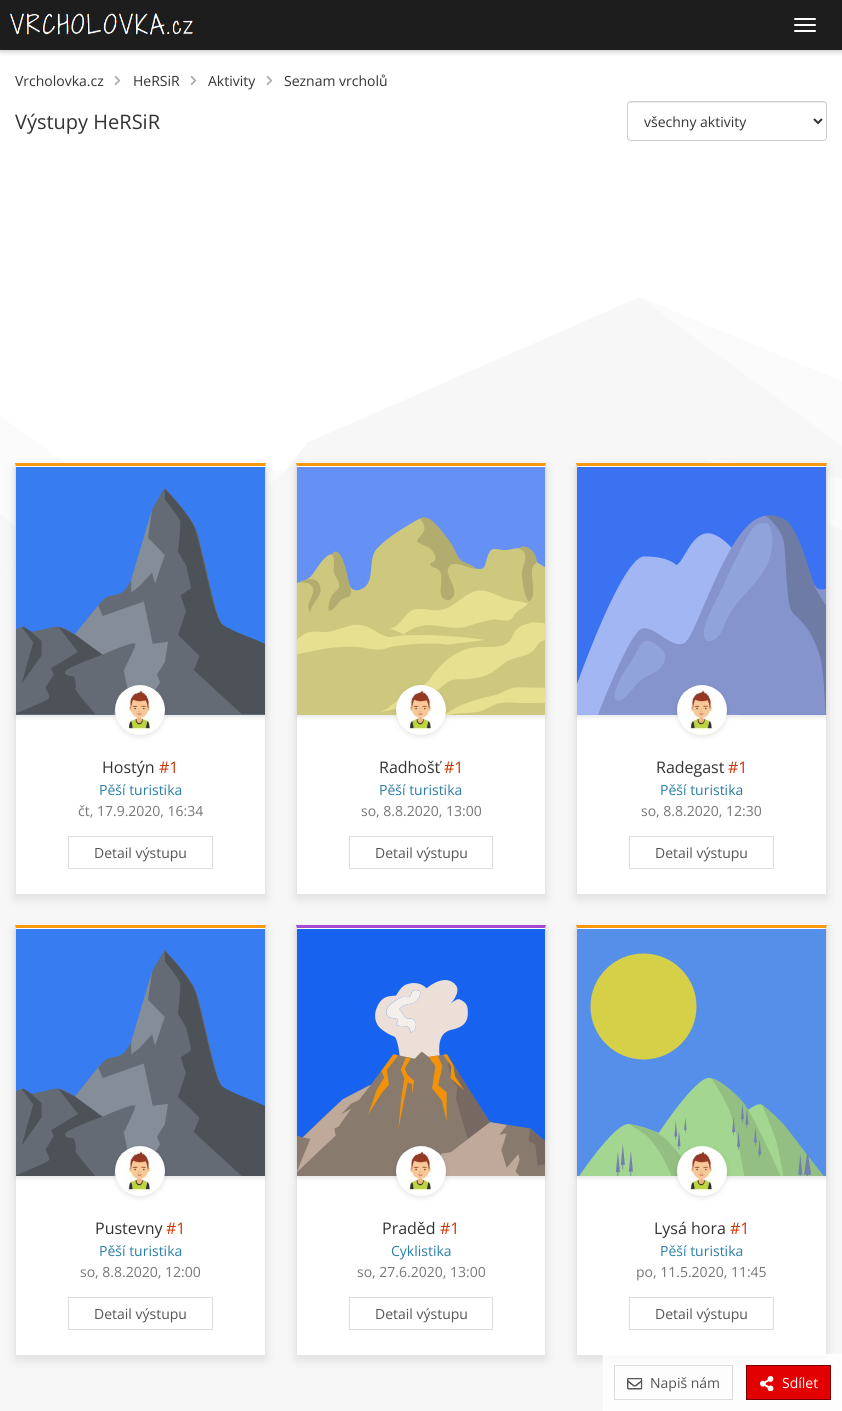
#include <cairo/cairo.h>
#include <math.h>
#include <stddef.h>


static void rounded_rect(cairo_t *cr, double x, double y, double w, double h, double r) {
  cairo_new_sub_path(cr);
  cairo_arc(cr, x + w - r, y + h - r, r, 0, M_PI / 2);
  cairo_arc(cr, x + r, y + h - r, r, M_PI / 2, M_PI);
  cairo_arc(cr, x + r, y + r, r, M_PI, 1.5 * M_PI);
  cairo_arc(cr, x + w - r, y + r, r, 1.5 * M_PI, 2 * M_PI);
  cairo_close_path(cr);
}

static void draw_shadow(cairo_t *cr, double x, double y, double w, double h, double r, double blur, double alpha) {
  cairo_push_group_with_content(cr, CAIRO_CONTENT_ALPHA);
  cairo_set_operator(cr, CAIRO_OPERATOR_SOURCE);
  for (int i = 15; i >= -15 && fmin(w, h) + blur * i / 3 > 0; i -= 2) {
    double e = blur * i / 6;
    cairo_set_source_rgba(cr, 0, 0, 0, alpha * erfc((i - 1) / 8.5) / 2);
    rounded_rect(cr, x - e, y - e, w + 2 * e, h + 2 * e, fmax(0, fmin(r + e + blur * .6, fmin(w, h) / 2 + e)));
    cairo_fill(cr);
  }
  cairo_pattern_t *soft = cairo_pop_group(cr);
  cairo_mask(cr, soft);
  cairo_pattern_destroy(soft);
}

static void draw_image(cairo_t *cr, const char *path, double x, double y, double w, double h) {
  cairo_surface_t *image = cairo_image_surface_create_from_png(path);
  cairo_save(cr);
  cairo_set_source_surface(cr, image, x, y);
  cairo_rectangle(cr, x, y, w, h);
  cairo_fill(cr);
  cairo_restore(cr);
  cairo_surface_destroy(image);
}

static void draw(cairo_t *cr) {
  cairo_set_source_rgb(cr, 1, 1, 1);
  cairo_paint(cr);
  draw_image(cr, "images/1.png", 0, 297, 842, 1114);
  cairo_set_source_rgb(cr, 0, 0, 0);
  draw_shadow(cr, 0, 2, 842, 50, 0, 2.5, 0.2);
  cairo_set_source_rgb(cr, 29 / 255.0, 29 / 255.0, 29 / 255.0);
  cairo_rectangle(cr, 0, 0, 842, 50);
  cairo_fill(cr);
  draw_image(cr, "images/2.png", 10, 13, 183, 22);
  cairo_set_source_rgb(cr, 1, 1, 1);
  rounded_rect(cr, 794, 18, 22, 2, 1);
  cairo_fill(cr);
  rounded_rect(cr, 794, 24, 22, 2, 1);
  cairo_fill(cr);
  rounded_rect(cr, 794, 30, 22, 2, 1);
  cairo_fill(cr);
  draw_image(cr, "images/3.png", 114, 75, 7, 10);
  draw_image(cr, "images/3.png", 190, 75, 7, 10);
  draw_image(cr, "images/3.png", 266, 75, 7, 10);
  cairo_set_source_rgb(cr, 236 / 255.0, 236 / 255.0, 236 / 255.0);
  cairo_new_path(cr);
  cairo_move_to(cr, 631, 103);
  cairo_line_to(cr, 823, 103);
  cairo_curve_to(cr, 825, 103, 826, 104, 826, 106);
  cairo_curve_to(cr, 826, 104, 825, 102, 823, 102);
  cairo_line_to(cr, 631, 102);
  cairo_curve_to(cr, 629, 102, 628, 104, 628, 106);
  cairo_curve_to(cr, 628, 104, 629, 103, 631, 103);
  cairo_close_path(cr);
  cairo_fill(cr);
  rounded_rect(cr, 627.5, 101.5, 199, 39, 3.5);
  cairo_set_source_rgb(cr, 204 / 255.0, 204 / 255.0, 204 / 255.0);
  cairo_set_line_width(cr, 1);
  cairo_stroke(cr);
  cairo_new_path(cr);
  cairo_move_to(cr, 814, 119);
  cairo_line_to(cr, 818, 123);
  cairo_line_to(cr, 822, 119);
  cairo_set_source_rgb(cr, 51 / 255.0, 51 / 255.0, 51 / 255.0);
  cairo_set_line_width(cr, 2);
  cairo_stroke(cr);
  cairo_set_source_rgb(cr, 0, 0, 0);
  draw_shadow(cr, 15, 467, 251, 432, 0, 5, 0.1);
  cairo_set_source_rgb(cr, 1, 1, 1);
  cairo_rectangle(cr, 15, 463, 251, 432);
  cairo_fill(cr);
  cairo_set_source_rgb(cr, 250 / 255.0, 152 / 255.0, 13 / 255.0);
  cairo_new_path(cr);
  cairo_move_to(cr, 15, 463);
  cairo_line_to(cr, 266, 463);
  cairo_line_to(cr, 265, 466);
  cairo_line_to(cr, 16, 466);
  cairo_close_path(cr);
  cairo_fill(cr);
  cairo_set_source_rgba(cr, 0, 0, 0, 0.1);
  cairo_new_path(cr);
  cairo_move_to(cr, 266, 463);
  cairo_line_to(cr, 266, 895);
  cairo_line_to(cr, 265, 894);
  cairo_line_to(cr, 265, 466);
  cairo_close_path(cr);
  cairo_fill(cr);
  cairo_new_path(cr);
  cairo_move_to(cr, 266, 895);
  cairo_line_to(cr, 15, 895);
  cairo_line_to(cr, 16, 894);
  cairo_line_to(cr, 265, 894);
  cairo_close_path(cr);
  cairo_fill(cr);
  cairo_new_path(cr);
  cairo_move_to(cr, 15, 895);
  cairo_line_to(cr, 15, 463);
  cairo_line_to(cr, 16, 466);
  cairo_line_to(cr, 16, 894);
  cairo_close_path(cr);
  cairo_fill(cr);
  cairo_save(cr);
  cairo_set_fill_rule(cr, CAIRO_FILL_RULE_EVEN_ODD);
  cairo_new_path(cr);
  cairo_move_to(cr, 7, 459);
  cairo_line_to(cr, 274, 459);
  cairo_line_to(cr, 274, 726);
  cairo_line_to(cr, 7, 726);
  cairo_close_path(cr);
  cairo_move_to(cr, 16, 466);
  cairo_line_to(cr, 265, 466);
  cairo_line_to(cr, 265, 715);
  cairo_line_to(cr, 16, 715);
  cairo_close_path(cr);
  cairo_clip(cr);
  cairo_set_source_rgb(cr, 0, 0, 0);
  draw_shadow(cr, 16, 468, 249, 249, 0, 2.5, 0.1);
  cairo_restore(cr);
  draw_image(cr, "images/4.png", 16, 467, 249, 248);
  cairo_set_source_rgb(cr, 0, 0, 0);
  draw_shadow(cr, 115, 687, 50, 50, 25, 2.5, 0.1);
  draw_image(cr, "images/5.png", 115, 685, 50, 50);
  cairo_rectangle(cr, 68.5, 836.5, 144, 32);
  cairo_set_source_rgb(cr, 221 / 255.0, 221 / 255.0, 221 / 255.0);
  cairo_set_line_width(cr, 1);
  cairo_stroke(cr);
  cairo_set_source_rgb(cr, 0, 0, 0);
  draw_shadow(cr, 296, 467, 250, 432, 0, 5, 0.1);
  cairo_set_source_rgb(cr, 1, 1, 1);
  cairo_rectangle(cr, 296, 463, 250, 432);
  cairo_fill(cr);
  cairo_set_source_rgb(cr, 250 / 255.0, 152 / 255.0, 13 / 255.0);
  cairo_new_path(cr);
  cairo_move_to(cr, 296, 463);
  cairo_line_to(cr, 546, 463);
  cairo_line_to(cr, 545, 466);
  cairo_line_to(cr, 297, 466);
  cairo_close_path(cr);
  cairo_fill(cr);
  cairo_set_source_rgba(cr, 0, 0, 0, 0.1);
  cairo_new_path(cr);
  cairo_move_to(cr, 546, 463);
  cairo_line_to(cr, 546, 895);
  cairo_line_to(cr, 545, 894);
  cairo_line_to(cr, 545, 466);
  cairo_close_path(cr);
  cairo_fill(cr);
  cairo_new_path(cr);
  cairo_move_to(cr, 546, 895);
  cairo_line_to(cr, 296, 895);
  cairo_line_to(cr, 297, 894);
  cairo_line_to(cr, 545, 894);
  cairo_close_path(cr);
  cairo_fill(cr);
  cairo_new_path(cr);
  cairo_move_to(cr, 296, 895);
  cairo_line_to(cr, 296, 463);
  cairo_line_to(cr, 297, 466);
  cairo_line_to(cr, 297, 894);
  cairo_close_path(cr);
  cairo_fill(cr);
  cairo_save(cr);
  cairo_set_fill_rule(cr, CAIRO_FILL_RULE_EVEN_ODD);
  cairo_new_path(cr);
  cairo_move_to(cr, 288, 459);
  cairo_line_to(cr, 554, 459);
  cairo_line_to(cr, 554, 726);
  cairo_line_to(cr, 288, 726);
  cairo_close_path(cr);
  cairo_move_to(cr, 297, 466);
  cairo_line_to(cr, 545, 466);
  cairo_line_to(cr, 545, 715);
  cairo_line_to(cr, 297, 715);
  cairo_close_path(cr);
  cairo_clip(cr);
  cairo_set_source_rgb(cr, 0, 0, 0);
  draw_shadow(cr, 297, 468, 248, 249, 0, 2.5, 0.1);
  cairo_restore(cr);
  draw_image(cr, "images/6.png", 297, 467, 248, 248);
  cairo_set_source_rgb(cr, 0, 0, 0);
  draw_shadow(cr, 396, 687, 50, 50, 25, 2.5, 0.1);
  draw_image(cr, "images/7.png", 396, 685, 50, 50);
  cairo_rectangle(cr, 349.5, 836.5, 143, 32);
  cairo_set_source_rgb(cr, 221 / 255.0, 221 / 255.0, 221 / 255.0);
  cairo_stroke(cr);
  cairo_set_source_rgb(cr, 0, 0, 0);
  draw_shadow(cr, 576, 467, 251, 432, 0, 5, 0.1);
  cairo_set_source_rgb(cr, 1, 1, 1);
  cairo_rectangle(cr, 576, 463, 251, 432);
  cairo_fill(cr);
  cairo_set_source_rgb(cr, 250 / 255.0, 152 / 255.0, 13 / 255.0);
  cairo_new_path(cr);
  cairo_move_to(cr, 576, 463);
  cairo_line_to(cr, 827, 463);
  cairo_line_to(cr, 826, 466);
  cairo_line_to(cr, 577, 466);
  cairo_close_path(cr);
  cairo_fill(cr);
  cairo_set_source_rgba(cr, 0, 0, 0, 0.1);
  cairo_new_path(cr);
  cairo_move_to(cr, 827, 463);
  cairo_line_to(cr, 827, 895);
  cairo_line_to(cr, 826, 894);
  cairo_line_to(cr, 826, 466);
  cairo_close_path(cr);
  cairo_fill(cr);
  cairo_new_path(cr);
  cairo_move_to(cr, 827, 895);
  cairo_line_to(cr, 576, 895);
  cairo_line_to(cr, 577, 894);
  cairo_line_to(cr, 826, 894);
  cairo_close_path(cr);
  cairo_fill(cr);
  cairo_new_path(cr);
  cairo_move_to(cr, 576, 895);
  cairo_line_to(cr, 576, 463);
  cairo_line_to(cr, 577, 466);
  cairo_line_to(cr, 577, 894);
  cairo_close_path(cr);
  cairo_fill(cr);
  cairo_save(cr);
  cairo_set_fill_rule(cr, CAIRO_FILL_RULE_EVEN_ODD);
  cairo_new_path(cr);
  cairo_move_to(cr, 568, 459);
  cairo_line_to(cr, 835, 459);
  cairo_line_to(cr, 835, 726);
  cairo_line_to(cr, 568, 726);
  cairo_close_path(cr);
  cairo_move_to(cr, 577, 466);
  cairo_line_to(cr, 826, 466);
  cairo_line_to(cr, 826, 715);
  cairo_line_to(cr, 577, 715);
  cairo_close_path(cr);
  cairo_clip(cr);
  cairo_set_source_rgb(cr, 0, 0, 0);
  draw_shadow(cr, 577, 468, 249, 249, 0, 2.5, 0.1);
  cairo_restore(cr);
  draw_image(cr, "images/8.png", 577, 467, 249, 248);
  cairo_set_source_rgb(cr, 0, 0, 0);
  draw_shadow(cr, 677, 687, 50, 50, 25, 2.5, 0.1);
  draw_image(cr, "images/9.png", 677, 685, 50, 50);
  cairo_rectangle(cr, 629.5, 836.5, 144, 32);
  cairo_set_source_rgb(cr, 221 / 255.0, 221 / 255.0, 221 / 255.0);
  cairo_stroke(cr);
  cairo_set_source_rgb(cr, 0, 0, 0);
  draw_shadow(cr, 15, 929, 251, 431, 0, 5, 0.1);
  cairo_set_source_rgb(cr, 1, 1, 1);
  cairo_rectangle(cr, 15, 925, 251, 431);
  cairo_fill(cr);
  cairo_set_source_rgb(cr, 250 / 255.0, 152 / 255.0, 13 / 255.0);
  cairo_new_path(cr);
  cairo_move_to(cr, 15, 925);
  cairo_line_to(cr, 266, 925);
  cairo_line_to(cr, 265, 928);
  cairo_line_to(cr, 16, 928);
  cairo_close_path(cr);
  cairo_fill(cr);
  cairo_set_source_rgba(cr, 0, 0, 0, 0.1);
  cairo_new_path(cr);
  cairo_move_to(cr, 266, 925);
  cairo_line_to(cr, 266, 1356);
  cairo_line_to(cr, 265, 1355);
  cairo_line_to(cr, 265, 928);
  cairo_close_path(cr);
  cairo_fill(cr);
  cairo_new_path(cr);
  cairo_move_to(cr, 266, 1356);
  cairo_line_to(cr, 15, 1356);
  cairo_line_to(cr, 16, 1355);
  cairo_line_to(cr, 265, 1355);
  cairo_close_path(cr);
  cairo_fill(cr);
  cairo_new_path(cr);
  cairo_move_to(cr, 15, 1356);
  cairo_line_to(cr, 15, 925);
  cairo_line_to(cr, 16, 928);
  cairo_line_to(cr, 16, 1355);
  cairo_close_path(cr);
  cairo_fill(cr);
  cairo_save(cr);
  cairo_set_fill_rule(cr, CAIRO_FILL_RULE_EVEN_ODD);
  cairo_new_path(cr);
  cairo_move_to(cr, 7, 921);
  cairo_line_to(cr, 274, 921);
  cairo_line_to(cr, 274, 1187);
  cairo_line_to(cr, 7, 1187);
  cairo_close_path(cr);
  cairo_move_to(cr, 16, 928);
  cairo_line_to(cr, 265, 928);
  cairo_line_to(cr, 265, 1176);
  cairo_line_to(cr, 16, 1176);
  cairo_close_path(cr);
  cairo_clip(cr);
  cairo_set_source_rgb(cr, 0, 0, 0);
  draw_shadow(cr, 16, 930, 249, 248, 0, 2.5, 0.1);
  cairo_restore(cr);
  draw_image(cr, "images/10.png", 16, 929, 249, 247);
  cairo_set_source_rgb(cr, 0, 0, 0);
  draw_shadow(cr, 115, 1148, 50, 50, 25, 2.5, 0.1);
  draw_image(cr, "images/11.png", 115, 1146, 50, 50);
  cairo_rectangle(cr, 68.5, 1297.5, 144, 32);
  cairo_set_source_rgb(cr, 221 / 255.0, 221 / 255.0, 221 / 255.0);
  cairo_stroke(cr);
  cairo_set_source_rgb(cr, 0, 0, 0);
  draw_shadow(cr, 296, 929, 250, 431, 0, 5, 0.1);
  cairo_set_source_rgb(cr, 1, 1, 1);
  cairo_rectangle(cr, 296, 925, 250, 431);
  cairo_fill(cr);
  cairo_set_source_rgb(cr, 165 / 255.0, 74 / 255.0, 214 / 255.0);
  cairo_new_path(cr);
  cairo_move_to(cr, 296, 925);
  cairo_line_to(cr, 546, 925);
  cairo_line_to(cr, 545, 928);
  cairo_line_to(cr, 297, 928);
  cairo_close_path(cr);
  cairo_fill(cr);
  cairo_set_source_rgba(cr, 0, 0, 0, 0.1);
  cairo_new_path(cr);
  cairo_move_to(cr, 546, 925);
  cairo_line_to(cr, 546, 1356);
  cairo_line_to(cr, 545, 1355);
  cairo_line_to(cr, 545, 928);
  cairo_close_path(cr);
  cairo_fill(cr);
  cairo_new_path(cr);
  cairo_move_to(cr, 546, 1356);
  cairo_line_to(cr, 296, 1356);
  cairo_line_to(cr, 297, 1355);
  cairo_line_to(cr, 545, 1355);
  cairo_close_path(cr);
  cairo_fill(cr);
  cairo_new_path(cr);
  cairo_move_to(cr, 296, 1356);
  cairo_line_to(cr, 296, 925);
  cairo_line_to(cr, 297, 928);
  cairo_line_to(cr, 297, 1355);
  cairo_close_path(cr);
  cairo_fill(cr);
  cairo_save(cr);
  cairo_set_fill_rule(cr, CAIRO_FILL_RULE_EVEN_ODD);
  cairo_new_path(cr);
  cairo_move_to(cr, 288, 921);
  cairo_line_to(cr, 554, 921);
  cairo_line_to(cr, 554, 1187);
  cairo_line_to(cr, 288, 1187);
  cairo_close_path(cr);
  cairo_move_to(cr, 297, 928);
  cairo_line_to(cr, 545, 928);
  cairo_line_to(cr, 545, 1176);
  cairo_line_to(cr, 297, 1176);
  cairo_close_path(cr);
  cairo_clip(cr);
  cairo_set_source_rgb(cr, 0, 0, 0);
  draw_shadow(cr, 297, 930, 248, 248, 0, 2.5, 0.1);
  cairo_restore(cr);
  draw_image(cr, "images/12.png", 297, 929, 248, 247);
  cairo_set_source_rgb(cr, 0, 0, 0);
  draw_shadow(cr, 396, 1148, 50, 50, 25, 2.5, 0.1);
  draw_image(cr, "images/13.png", 396, 1146, 50, 50);
  cairo_rectangle(cr, 349.5, 1297.5, 143, 32);
  cairo_set_source_rgb(cr, 221 / 255.0, 221 / 255.0, 221 / 255.0);
  cairo_stroke(cr);
  cairo_set_source_rgb(cr, 0, 0, 0);
  draw_shadow(cr, 576, 929, 251, 431, 0, 5, 0.1);
  cairo_set_source_rgb(cr, 1, 1, 1);
  cairo_rectangle(cr, 576, 925, 251, 431);
  cairo_fill(cr);
  cairo_set_source_rgb(cr, 250 / 255.0, 152 / 255.0, 13 / 255.0);
  cairo_new_path(cr);
  cairo_move_to(cr, 576, 925);
  cairo_line_to(cr, 827, 925);
  cairo_line_to(cr, 826, 928);
  cairo_line_to(cr, 577, 928);
  cairo_close_path(cr);
  cairo_fill(cr);
  cairo_set_source_rgba(cr, 0, 0, 0, 0.1);
  cairo_new_path(cr);
  cairo_move_to(cr, 827, 925);
  cairo_line_to(cr, 827, 1356);
  cairo_line_to(cr, 826, 1355);
  cairo_line_to(cr, 826, 928);
  cairo_close_path(cr);
  cairo_fill(cr);
  cairo_new_path(cr);
  cairo_move_to(cr, 827, 1356);
  cairo_line_to(cr, 576, 1356);
  cairo_line_to(cr, 577, 1355);
  cairo_line_to(cr, 826, 1355);
  cairo_close_path(cr);
  cairo_fill(cr);
  cairo_new_path(cr);
  cairo_move_to(cr, 576, 1356);
  cairo_line_to(cr, 576, 925);
  cairo_line_to(cr, 577, 928);
  cairo_line_to(cr, 577, 1355);
  cairo_close_path(cr);
  cairo_fill(cr);
  cairo_save(cr);
  cairo_set_fill_rule(cr, CAIRO_FILL_RULE_EVEN_ODD);
  cairo_new_path(cr);
  cairo_move_to(cr, 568, 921);
  cairo_line_to(cr, 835, 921);
  cairo_line_to(cr, 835, 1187);
  cairo_line_to(cr, 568, 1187);
  cairo_close_path(cr);
  cairo_move_to(cr, 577, 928);
  cairo_line_to(cr, 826, 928);
  cairo_line_to(cr, 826, 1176);
  cairo_line_to(cr, 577, 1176);
  cairo_close_path(cr);
  cairo_clip(cr);
  cairo_set_source_rgb(cr, 0, 0, 0);
  draw_shadow(cr, 577, 930, 249, 248, 0, 2.5, 0.1);
  cairo_restore(cr);
  draw_image(cr, "images/14.png", 577, 929, 249, 247);
  cairo_set_source_rgb(cr, 0, 0, 0);
  draw_shadow(cr, 677, 1148, 50, 50, 25, 2.5, 0.1);
  draw_image(cr, "images/15.png", 677, 1146, 50, 50);
  cairo_rectangle(cr, 629.5, 1297.5, 144, 32);
  cairo_set_source_rgb(cr, 221 / 255.0, 221 / 255.0, 221 / 255.0);
  cairo_stroke(cr);
  cairo_set_source_rgba(cr, 1, 1, 1, 0.8);
  cairo_rectangle(cr, 603.5, 1354.5, 238, 56);
  cairo_fill_preserve(cr);
  cairo_set_source_rgb(cr, 1, 1, 1);
  cairo_stroke(cr);
  cairo_rectangle(cr, 614.5, 1365.5, 118, 34);
  cairo_set_source_rgb(cr, 221 / 255.0, 221 / 255.0, 221 / 255.0);
  cairo_stroke(cr);
  draw_image(cr, "images/16.png", 627, 1378, 16, 12);
  cairo_set_source_rgb(cr, 226 / 255.0, 0, 0);
  cairo_rectangle(cr, 746.5, 1365.5, 84, 34);
  cairo_fill_preserve(cr);
  cairo_set_source_rgb(cr, 121 / 255.0, 0, 0);
  cairo_stroke(cr);
  draw_image(cr, "images/17.png", 760, 1376, 14, 15);
  cairo_select_font_face(cr, "Open Sans", CAIRO_FONT_SLANT_NORMAL, CAIRO_FONT_WEIGHT_NORMAL);
  cairo_set_font_size(cr, 14);
  cairo_set_source_rgb(cr, 51 / 255.0, 51 / 255.0, 51 / 255.0);
  cairo_move_to(cr, 15, 86);
  cairo_show_text(cr, "Vrcholovka.cz");
  cairo_move_to(cr, 133, 86);
  cairo_show_text(cr, "HeRSiR");
  cairo_move_to(cr, 208, 86);
  cairo_show_text(cr, "Aktivity");
  cairo_move_to(cr, 284, 86);
  cairo_show_text(cr, "Seznam vrcholů");
  cairo_set_font_size(cr, 20);
  cairo_move_to(cr, 15, 129);
  cairo_show_text(cr, "Výstupy HeRSiR");
  cairo_set_font_size(cr, 14);
  cairo_move_to(cr, 644, 127);
  cairo_show_text(cr, "všechny aktivity");
  cairo_set_font_size(cr, 16);
  cairo_move_to(cr, 102, 773);
  cairo_show_text(cr, "Hostýn");
  cairo_set_source_rgb(cr, 204 / 255.0, 51 / 255.0, 0);
  cairo_move_to(cr, 159, 773);
  cairo_show_text(cr, "#1");
  cairo_set_font_size(cr, 14);
  cairo_set_source_rgb(cr, 42 / 255.0, 126 / 255.0, 167 / 255.0);
  cairo_move_to(cr, 99, 795);
  cairo_show_text(cr, "Pěší turistika");
  cairo_set_source_rgb(cr, 119 / 255.0, 119 / 255.0, 119 / 255.0);
  cairo_move_to(cr, 78, 816);
  cairo_show_text(cr, "čt, 17.9.2020, 16:34");
  cairo_set_source_rgb(cr, 85 / 255.0, 85 / 255.0, 85 / 255.0);
  cairo_move_to(cr, 94, 858);
  cairo_show_text(cr, "Detail výstupu");
  cairo_set_font_size(cr, 16);
  cairo_set_source_rgb(cr, 51 / 255.0, 51 / 255.0, 51 / 255.0);
  cairo_move_to(cr, 379, 773);
  cairo_show_text(cr, "Radhošť");
  cairo_set_source_rgb(cr, 204 / 255.0, 51 / 255.0, 0);
  cairo_move_to(cr, 444, 773);
  cairo_show_text(cr, "#1");
  cairo_set_font_size(cr, 14);
  cairo_set_source_rgb(cr, 42 / 255.0, 126 / 255.0, 167 / 255.0);
  cairo_move_to(cr, 379, 795);
  cairo_show_text(cr, "Pěší turistika");
  cairo_set_source_rgb(cr, 119 / 255.0, 119 / 255.0, 119 / 255.0);
  cairo_move_to(cr, 361, 816);
  cairo_show_text(cr, "so, 8.8.2020, 13:00");
  cairo_set_source_rgb(cr, 85 / 255.0, 85 / 255.0, 85 / 255.0);
  cairo_move_to(cr, 375, 858);
  cairo_show_text(cr, "Detail výstupu");
  cairo_set_font_size(cr, 16);
  cairo_set_source_rgb(cr, 51 / 255.0, 51 / 255.0, 51 / 255.0);
  cairo_move_to(cr, 656, 773);
  cairo_show_text(cr, "Radegast");
  cairo_set_source_rgb(cr, 204 / 255.0, 51 / 255.0, 0);
  cairo_move_to(cr, 728, 773);
  cairo_show_text(cr, "#1");
  cairo_set_font_size(cr, 14);
  cairo_set_source_rgb(cr, 42 / 255.0, 126 / 255.0, 167 / 255.0);
  cairo_move_to(cr, 660, 795);
  cairo_show_text(cr, "Pěší turistika");
  cairo_set_source_rgb(cr, 119 / 255.0, 119 / 255.0, 119 / 255.0);
  cairo_move_to(cr, 641, 816);
  cairo_show_text(cr, "so, 8.8.2020, 12:30");
  cairo_set_source_rgb(cr, 85 / 255.0, 85 / 255.0, 85 / 255.0);
  cairo_move_to(cr, 655, 858);
  cairo_show_text(cr, "Detail výstupu");
  cairo_set_font_size(cr, 16);
  cairo_set_source_rgb(cr, 51 / 255.0, 51 / 255.0, 51 / 255.0);
  cairo_move_to(cr, 95, 1234);
  cairo_show_text(cr, "Pustevny");
  cairo_set_source_rgb(cr, 204 / 255.0, 51 / 255.0, 0);
  cairo_move_to(cr, 166, 1234);
  cairo_show_text(cr, "#1");
  cairo_set_font_size(cr, 14);
  cairo_set_source_rgb(cr, 42 / 255.0, 126 / 255.0, 167 / 255.0);
  cairo_move_to(cr, 99, 1256);
  cairo_show_text(cr, "Pěší turistika");
  cairo_set_source_rgb(cr, 119 / 255.0, 119 / 255.0, 119 / 255.0);
  cairo_move_to(cr, 80, 1277);
  cairo_show_text(cr, "so, 8.8.2020, 12:00");
  cairo_set_source_rgb(cr, 85 / 255.0, 85 / 255.0, 85 / 255.0);
  cairo_move_to(cr, 94, 1319);
  cairo_show_text(cr, "Detail výstupu");
  cairo_set_font_size(cr, 16);
  cairo_set_source_rgb(cr, 51 / 255.0, 51 / 255.0, 51 / 255.0);
  cairo_move_to(cr, 382, 1234);
  cairo_show_text(cr, "Praděd");
  cairo_set_source_rgb(cr, 204 / 255.0, 51 / 255.0, 0);
  cairo_move_to(cr, 440, 1234);
  cairo_show_text(cr, "#1");
  cairo_set_font_size(cr, 14);
  cairo_set_source_rgb(cr, 42 / 255.0, 126 / 255.0, 167 / 255.0);
  cairo_move_to(cr, 391, 1256);
  cairo_show_text(cr, "Cyklistika");
  cairo_set_source_rgb(cr, 119 / 255.0, 119 / 255.0, 119 / 255.0);
  cairo_move_to(cr, 357, 1277);
  cairo_show_text(cr, "so, 27.6.2020, 13:00");
  cairo_set_source_rgb(cr, 85 / 255.0, 85 / 255.0, 85 / 255.0);
  cairo_move_to(cr, 375, 1319);
  cairo_show_text(cr, "Detail výstupu");
  cairo_set_font_size(cr, 16);
  cairo_set_source_rgb(cr, 51 / 255.0, 51 / 255.0, 51 / 255.0);
  cairo_move_to(cr, 654, 1234);
  cairo_show_text(cr, "Lysá hora");
  cairo_set_source_rgb(cr, 204 / 255.0, 51 / 255.0, 0);
  cairo_move_to(cr, 730, 1234);
  cairo_show_text(cr, "#1");
  cairo_set_font_size(cr, 14);
  cairo_set_source_rgb(cr, 42 / 255.0, 126 / 255.0, 167 / 255.0);
  cairo_move_to(cr, 660, 1256);
  cairo_show_text(cr, "Pěší turistika");
  cairo_set_source_rgb(cr, 119 / 255.0, 119 / 255.0, 119 / 255.0);
  cairo_move_to(cr, 636, 1277);
  cairo_show_text(cr, "po, 11.5.2020, 11:45");
  cairo_set_source_rgb(cr, 85 / 255.0, 85 / 255.0, 85 / 255.0);
  cairo_move_to(cr, 655, 1319);
  cairo_show_text(cr, "Detail výstupu");
  cairo_move_to(cr, 650, 1388);
  cairo_show_text(cr, "Napiš nám");
  cairo_set_source_rgb(cr, 1, 1, 1);
  cairo_move_to(cr, 782, 1388);
  cairo_show_text(cr, "Sdílet");
}

int main(void) {
  cairo_surface_t *surface = cairo_image_surface_create(CAIRO_FORMAT_RGB24, 842, 1411);
  cairo_t *cr = cairo_create(surface);
  cairo_font_options_t *options = cairo_font_options_create();
  cairo_font_options_set_hint_metrics(options, CAIRO_HINT_METRICS_OFF);
  cairo_font_options_set_hint_style(options, CAIRO_HINT_STYLE_NONE);
  cairo_set_font_options(cr, options);
  cairo_set_miter_limit(cr, 4);
  draw(cr);
  cairo_surface_write_to_png(surface, "out.png");
  cairo_font_options_destroy(options);
  cairo_destroy(cr);
  cairo_surface_destroy(surface);
  return 0;
}
